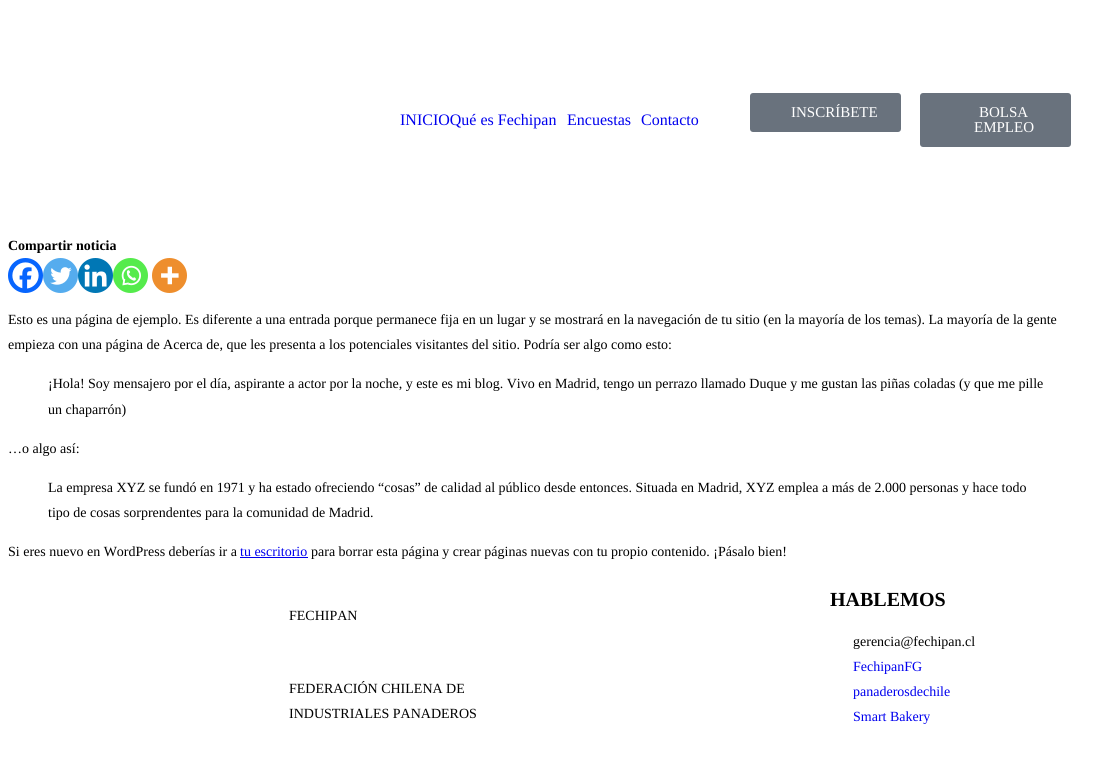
#include <cairo/cairo.h>
#include <math.h>
#include <stddef.h>


static void rounded_rect(cairo_t *cr, double x, double y, double w, double h, double r) {
  cairo_new_sub_path(cr);
  cairo_arc(cr, x + w - r, y + h - r, r, 0, M_PI / 2);
  cairo_arc(cr, x + r, y + h - r, r, M_PI / 2, M_PI);
  cairo_arc(cr, x + r, y + r, r, M_PI, 1.5 * M_PI);
  cairo_arc(cr, x + w - r, y + r, r, 1.5 * M_PI, 2 * M_PI);
  cairo_close_path(cr);
}

static void draw_image(cairo_t *cr, const char *path, double x, double y, double w, double h) {
  cairo_surface_t *image = cairo_image_surface_create_from_png(path);
  cairo_save(cr);
  cairo_set_source_surface(cr, image, x, y);
  cairo_rectangle(cr, x, y, w, h);
  cairo_fill(cr);
  cairo_restore(cr);
  cairo_surface_destroy(image);
}

static void draw(cairo_t *cr) {
  cairo_set_source_rgb(cr, 1, 1, 1);
  cairo_paint(cr);
  cairo_set_source_rgb(cr, 105 / 255.0, 114 / 255.0, 125 / 255.0);
  rounded_rect(cr, 750, 93, 151, 39, 3);
  cairo_fill(cr);
  rounded_rect(cr, 920, 93, 151, 54, 3);
  cairo_fill(cr);
  cairo_set_source_rgb(cr, 7 / 255.0, 101 / 255.0, 254 / 255.0);
  cairo_arc(cr, 25.5, 275.5, 17.5, 0, 2 * M_PI);
  cairo_fill(cr);
  draw_image(cr, "images/1.png", 12, 262, 27, 27);
  cairo_set_source_rgb(cr, 85 / 255.0, 172 / 255.0, 238 / 255.0);
  cairo_arc(cr, 60.5, 275.5, 17.5, 0, 2 * M_PI);
  cairo_fill(cr);
  draw_image(cr, "images/2.png", 50, 267, 22, 18);
  cairo_set_source_rgb(cr, 0, 119 / 255.0, 181 / 255.0);
  cairo_arc(cr, 95.5, 275.5, 17.5, 0, 2 * M_PI);
  cairo_fill(cr);
  draw_image(cr, "images/3.png", 84, 264, 23, 23);
  cairo_set_source_rgb(cr, 85 / 255.0, 235 / 255.0, 76 / 255.0);
  cairo_arc(cr, 130.5, 275.5, 17.5, 0, 2 * M_PI);
  cairo_fill(cr);
  draw_image(cr, "images/4.png", 121, 265, 20, 21);
  cairo_set_source_rgb(cr, 238 / 255.0, 142 / 255.0, 45 / 255.0);
  cairo_arc(cr, 169.5, 275.5, 17.5, 0, 2 * M_PI);
  cairo_fill(cr);
  draw_image(cr, "images/5.png", 161, 266, 18, 19);
  cairo_set_source_rgb(cr, 0, 0, 238 / 255.0);
  cairo_rectangle(cr, 240, 557, 68, 1);
  cairo_fill(cr);
  cairo_select_font_face(cr, "Liberation Serif", CAIRO_FONT_SLANT_NORMAL, CAIRO_FONT_WEIGHT_NORMAL);
  cairo_set_font_size(cr, 16);
  cairo_move_to(cr, 400, 125);
  cairo_show_text(cr, "INICIOQué es Fechipan");
  cairo_move_to(cr, 567, 125);
  cairo_show_text(cr, "Encuestas");
  cairo_move_to(cr, 641, 125);
  cairo_show_text(cr, "Contacto");
  cairo_set_font_size(cr, 15);
  cairo_set_source_rgb(cr, 1, 1, 1);
  cairo_move_to(cr, 791, 117);
  cairo_show_text(cr, "INSCRÍBETE");
  cairo_move_to(cr, 979, 117);
  cairo_show_text(cr, "BOLSA");
  cairo_move_to(cr, 974, 132);
  cairo_show_text(cr, "EMPLEO");
  cairo_select_font_face(cr, "Liberation Serif", CAIRO_FONT_SLANT_NORMAL, CAIRO_FONT_WEIGHT_BOLD);
  cairo_set_font_size(cr, 14);
  cairo_set_source_rgb(cr, 0, 0, 0);
  cairo_move_to(cr, 8, 250);
  cairo_show_text(cr, "Compartir noticia");
  cairo_select_font_face(cr, "Liberation Serif", CAIRO_FONT_SLANT_NORMAL, CAIRO_FONT_WEIGHT_NORMAL);
  cairo_move_to(cr, 8, 324);
  cairo_show_text(cr, "Esto es una página de ejemplo. Es diferente a una entrada porque permanece fija en un lugar y se mostrará en la navegación de tu sitio (en la mayoría de los temas). La mayoría de la gente");
  cairo_move_to(cr, 8, 349);
  cairo_show_text(cr, "empieza con una página de Acerca de, que les presenta a los potenciales visitantes del sitio. Podría ser algo como esto:");
  cairo_move_to(cr, 48, 388);
  cairo_show_text(cr, "¡Hola! Soy mensajero por el día, aspirante a actor por la noche, y este es mi blog. Vivo en Madrid, tengo un perrazo llamado Duque y me gustan las piñas coladas (y que me pille");
  cairo_move_to(cr, 48, 414);
  cairo_show_text(cr, "un chaparrón)");
  cairo_move_to(cr, 8, 453);
  cairo_show_text(cr, "…o algo así:");
  cairo_move_to(cr, 48, 492);
  cairo_show_text(cr, "La empresa XYZ se fundó en 1971 y ha estado ofreciendo “cosas” de calidad al público desde entonces. Situada en Madrid, XYZ emplea a más de 2.000 personas y hace todo");
  cairo_move_to(cr, 48, 517);
  cairo_show_text(cr, "tipo de cosas sorprendentes para la comunidad de Madrid.");
  cairo_move_to(cr, 8, 556);
  cairo_show_text(cr, "Si eres nuevo en WordPress deberías ir a");
  cairo_set_source_rgb(cr, 0, 0, 238 / 255.0);
  cairo_move_to(cr, 240, 556);
  cairo_show_text(cr, "tu escritorio");
  cairo_set_source_rgb(cr, 0, 0, 0);
  cairo_move_to(cr, 311, 556);
  cairo_show_text(cr, "para borrar esta página y crear páginas nuevas con tu propio contenido. ¡Pásalo bien!");
  cairo_move_to(cr, 289, 620);
  cairo_show_text(cr, "FECHIPAN");
  cairo_move_to(cr, 289, 693);
  cairo_show_text(cr, "FEDERACIÓN CHILENA DE");
  cairo_move_to(cr, 289, 718);
  cairo_show_text(cr, "INDUSTRIALES PANADEROS");
  cairo_select_font_face(cr, "Liberation Serif", CAIRO_FONT_SLANT_NORMAL, CAIRO_FONT_WEIGHT_BOLD);
  cairo_set_font_size(cr, 20);
  cairo_move_to(cr, 830, 606);
  cairo_show_text(cr, "HABLEMOS");
  cairo_select_font_face(cr, "Liberation Serif", CAIRO_FONT_SLANT_NORMAL, CAIRO_FONT_WEIGHT_NORMAL);
  cairo_set_font_size(cr, 14);
  cairo_move_to(cr, 853, 646);
  cairo_show_text(cr, "gerencia@fechipan.cl");
  cairo_set_source_rgb(cr, 0, 0, 238 / 255.0);
  cairo_move_to(cr, 853, 671);
  cairo_show_text(cr, "FechipanFG");
  cairo_move_to(cr, 853, 696);
  cairo_show_text(cr, "panaderosdechile");
  cairo_move_to(cr, 853, 721);
  cairo_show_text(cr, "Smart Bakery");
}

int main(void) {
  cairo_surface_t *surface = cairo_image_surface_create(CAIRO_FORMAT_RGB24, 1099, 761);
  cairo_t *cr = cairo_create(surface);
  cairo_font_options_t *options = cairo_font_options_create();
  cairo_font_options_set_hint_metrics(options, CAIRO_HINT_METRICS_OFF);
  cairo_font_options_set_hint_style(options, CAIRO_HINT_STYLE_NONE);
  cairo_set_font_options(cr, options);
  cairo_set_miter_limit(cr, 4);
  draw(cr);
  cairo_surface_write_to_png(surface, "out.png");
  cairo_font_options_destroy(options);
  cairo_destroy(cr);
  cairo_surface_destroy(surface);
  return 0;
}
